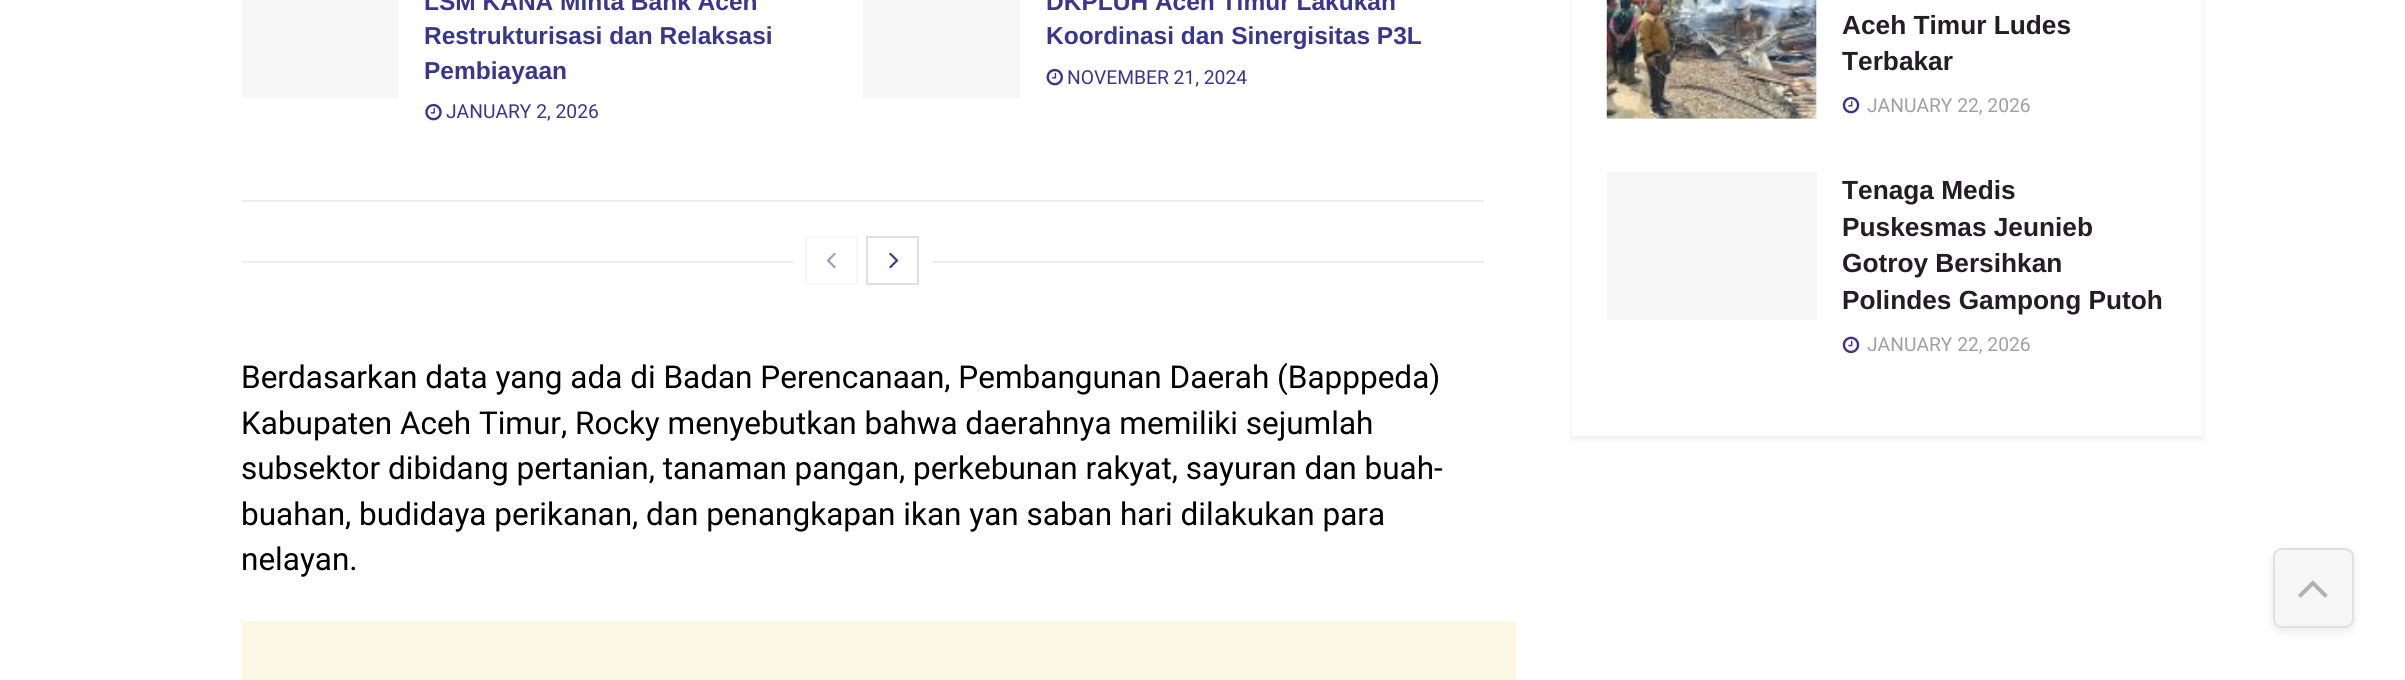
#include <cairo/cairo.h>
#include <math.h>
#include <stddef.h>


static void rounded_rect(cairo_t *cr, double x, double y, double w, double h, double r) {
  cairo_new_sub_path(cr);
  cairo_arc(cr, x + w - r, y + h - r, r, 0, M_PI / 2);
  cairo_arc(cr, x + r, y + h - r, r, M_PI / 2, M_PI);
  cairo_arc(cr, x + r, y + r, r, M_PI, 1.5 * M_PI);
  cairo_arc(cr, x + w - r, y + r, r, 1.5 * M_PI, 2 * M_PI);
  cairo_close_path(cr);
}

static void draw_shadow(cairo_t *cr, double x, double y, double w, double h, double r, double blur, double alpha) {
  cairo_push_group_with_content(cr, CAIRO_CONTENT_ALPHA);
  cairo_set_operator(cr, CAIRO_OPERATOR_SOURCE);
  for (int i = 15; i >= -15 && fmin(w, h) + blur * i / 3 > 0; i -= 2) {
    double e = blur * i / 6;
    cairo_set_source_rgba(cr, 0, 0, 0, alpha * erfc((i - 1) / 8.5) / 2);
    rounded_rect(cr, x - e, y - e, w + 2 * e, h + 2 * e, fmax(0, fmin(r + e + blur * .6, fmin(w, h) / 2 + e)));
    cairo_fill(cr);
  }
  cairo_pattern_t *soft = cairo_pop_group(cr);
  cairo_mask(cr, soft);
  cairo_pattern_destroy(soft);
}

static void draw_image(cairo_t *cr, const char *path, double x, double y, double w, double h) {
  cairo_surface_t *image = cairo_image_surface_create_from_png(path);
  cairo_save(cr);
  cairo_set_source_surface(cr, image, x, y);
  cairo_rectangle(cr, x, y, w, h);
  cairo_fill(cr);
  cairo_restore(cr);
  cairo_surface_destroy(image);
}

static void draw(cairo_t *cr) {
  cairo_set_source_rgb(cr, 1, 1, 1);
  cairo_paint(cr);
  cairo_set_source_rgb(cr, 238 / 255.0, 238 / 255.0, 238 / 255.0);
  cairo_rectangle(cr, 242, 200, 1242, 2);
  cairo_fill(cr);
  cairo_set_source_rgb(cr, 247 / 255.0, 247 / 255.0, 247 / 255.0);
  cairo_rectangle(cr, 242, 0, 157, 98);
  cairo_fill(cr);
  draw_image(cr, "images/1.png", 425, 103, 17, 18);
  cairo_rectangle(cr, 863, 0, 157, 98);
  cairo_fill(cr);
  draw_image(cr, "images/2.png", 1046, 68, 17, 18);
  cairo_set_source_rgb(cr, 238 / 255.0, 238 / 255.0, 238 / 255.0);
  cairo_rectangle(cr, 242, 261, 551, 2);
  cairo_fill(cr);
  cairo_rectangle(cr, 806, 237, 51, 47);
  cairo_set_source_rgb(cr, 247 / 255.0, 247 / 255.0, 247 / 255.0);
  cairo_stroke(cr);
  draw_image(cr, "images/3.png", 826, 252, 10, 17);
  cairo_rectangle(cr, 867, 237, 51, 47);
  cairo_set_source_rgb(cr, 224 / 255.0, 224 / 255.0, 224 / 255.0);
  cairo_stroke(cr);
  draw_image(cr, "images/4.png", 889, 252, 10, 17);
  cairo_set_source_rgb(cr, 238 / 255.0, 238 / 255.0, 238 / 255.0);
  cairo_rectangle(cr, 933, 261, 551, 2);
  cairo_fill(cr);
  cairo_set_source_rgb(cr, 252 / 255.0, 248 / 255.0, 227 / 255.0);
  cairo_rectangle(cr, 242, 621, 1274, 59);
  cairo_fill(cr);
  cairo_set_source_rgb(cr, 0, 0, 0);
  draw_shadow(cr, 1572, -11, 630, 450, 0, 3.5, 0.08);
  cairo_set_source_rgb(cr, 1, 1, 1);
  cairo_rectangle(cr, 1572, 0, 630, 436);
  cairo_fill(cr);
  cairo_set_source_rgb(cr, 247 / 255.0, 247 / 255.0, 247 / 255.0);
  cairo_rectangle(cr, 1607, 0, 210, 119);
  cairo_fill(cr);
  draw_image(cr, "images/5.png", 1606, 0, 211, 119);
  draw_image(cr, "images/6.png", 1842, 96, 18, 18);
  cairo_rectangle(cr, 1607, 172, 210, 148);
  cairo_fill(cr);
  draw_image(cr, "images/7.png", 1842, 336, 18, 18);
  cairo_save(cr);
  cairo_set_fill_rule(cr, CAIRO_FILL_RULE_EVEN_ODD);
  cairo_new_path(cr);
  cairo_move_to(cr, 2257, 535);
  cairo_line_to(cr, 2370, 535);
  cairo_line_to(cr, 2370, 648);
  cairo_line_to(cr, 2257, 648);
  cairo_close_path(cr);
  cairo_move_to(cr, 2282, 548);
  cairo_line_to(cr, 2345, 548);
  cairo_curve_to(cr, 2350, 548, 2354, 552, 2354, 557);
  cairo_line_to(cr, 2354, 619);
  cairo_curve_to(cr, 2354, 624, 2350, 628, 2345, 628);
  cairo_line_to(cr, 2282, 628);
  cairo_curve_to(cr, 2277, 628, 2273, 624, 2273, 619);
  cairo_line_to(cr, 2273, 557);
  cairo_curve_to(cr, 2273, 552, 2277, 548, 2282, 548);
  cairo_close_path(cr);
  cairo_clip(cr);
  cairo_set_source_rgb(cr, 51 / 255.0, 51 / 255.0, 51 / 255.0);
  draw_shadow(cr, 2273, 551, 81, 81, 9, 5, 0.1);
  cairo_restore(cr);
  cairo_set_source_rgba(cr, 196 / 255.0, 196 / 255.0, 196 / 255.0, 0.15);
  rounded_rect(cr, 2273, 548, 81, 80, 9);
  cairo_fill(cr);
  rounded_rect(cr, 2274, 549, 79, 78, 8);
  cairo_set_source_rgba(cr, 51 / 255.0, 51 / 255.0, 51 / 255.0, 0.11);
  cairo_stroke(cr);
  draw_image(cr, "images/8.png", 2298, 580, 30, 18);
  cairo_select_font_face(cr, "Liberation Sans", CAIRO_FONT_SLANT_NORMAL, CAIRO_FONT_WEIGHT_BOLD);
  cairo_set_font_size(cr, 24.5);
  cairo_set_source_rgb(cr, 61 / 255.0, 52 / 255.0, 139 / 255.0);
  cairo_move_to(cr, 424, 10);
  cairo_show_text(cr, "LSM KANA Minta Bank Aceh");
  cairo_move_to(cr, 424, 44);
  cairo_show_text(cr, "Restrukturisasi dan Relaksasi");
  cairo_move_to(cr, 424, 79);
  cairo_show_text(cr, "Pembiayaan");
  cairo_select_font_face(cr, "Roboto", CAIRO_FONT_SLANT_NORMAL, CAIRO_FONT_WEIGHT_NORMAL);
  cairo_set_font_size(cr, 19.25);
  cairo_move_to(cr, 446, 118);
  cairo_show_text(cr, "JANUARY 2, 2026");
  cairo_select_font_face(cr, "Liberation Sans", CAIRO_FONT_SLANT_NORMAL, CAIRO_FONT_WEIGHT_BOLD);
  cairo_set_font_size(cr, 24.5);
  cairo_move_to(cr, 1046, 10);
  cairo_show_text(cr, "DKPLUH Aceh Timur Lakukan");
  cairo_move_to(cr, 1046, 44);
  cairo_show_text(cr, "Koordinasi dan Sinergisitas P3L");
  cairo_select_font_face(cr, "Roboto", CAIRO_FONT_SLANT_NORMAL, CAIRO_FONT_WEIGHT_NORMAL);
  cairo_set_font_size(cr, 19.25);
  cairo_move_to(cr, 1067, 84);
  cairo_show_text(cr, "NOVEMBER 21, 2024");
  cairo_set_font_size(cr, 31.5);
  cairo_set_source_rgb(cr, 0, 0, 0);
  cairo_move_to(cr, 241, 388);
  cairo_show_text(cr, "Berdasarkan data yang ada di Badan Perencanaan, Pembangunan Daerah (Bapppeda)");
  cairo_move_to(cr, 241, 434);
  cairo_show_text(cr, "Kabupaten Aceh Timur, Rocky menyebutkan bahwa daerahnya memiliki sejumlah");
  cairo_move_to(cr, 241, 479);
  cairo_show_text(cr, "subsektor dibidang pertanian, tanaman pangan, perkebunan rakyat, sayuran dan buah-");
  cairo_move_to(cr, 241, 525);
  cairo_show_text(cr, "buahan, budidaya perikanan, dan penangkapan ikan yan saban hari dilakukan para");
  cairo_move_to(cr, 241, 570);
  cairo_show_text(cr, "nelayan.");
  cairo_select_font_face(cr, "Liberation Sans", CAIRO_FONT_SLANT_NORMAL, CAIRO_FONT_WEIGHT_BOLD);
  cairo_set_font_size(cr, 26.25);
  cairo_set_source_rgb(cr, 34 / 255.0, 30 / 255.0, 34 / 255.0);
  cairo_move_to(cr, 1842, 34);
  cairo_show_text(cr, "Aceh Timur Ludes");
  cairo_move_to(cr, 1842, 70);
  cairo_show_text(cr, "Terbakar");
  cairo_select_font_face(cr, "Roboto", CAIRO_FONT_SLANT_NORMAL, CAIRO_FONT_WEIGHT_NORMAL);
  cairo_set_font_size(cr, 19.25);
  cairo_set_source_rgb(cr, 160 / 255.0, 160 / 255.0, 160 / 255.0);
  cairo_move_to(cr, 1867, 112);
  cairo_show_text(cr, "JANUARY 22, 2026");
  cairo_select_font_face(cr, "Liberation Sans", CAIRO_FONT_SLANT_NORMAL, CAIRO_FONT_WEIGHT_BOLD);
  cairo_set_font_size(cr, 26.25);
  cairo_set_source_rgb(cr, 34 / 255.0, 30 / 255.0, 34 / 255.0);
  cairo_move_to(cr, 1842, 199);
  cairo_show_text(cr, "Tenaga Medis");
  cairo_move_to(cr, 1842, 236);
  cairo_show_text(cr, "Puskesmas Jeunieb");
  cairo_move_to(cr, 1842, 272);
  cairo_show_text(cr, "Gotroy Bersihkan");
  cairo_move_to(cr, 1842, 309);
  cairo_show_text(cr, "Polindes Gampong Putoh");
  cairo_select_font_face(cr, "Roboto", CAIRO_FONT_SLANT_NORMAL, CAIRO_FONT_WEIGHT_NORMAL);
  cairo_set_font_size(cr, 19.25);
  cairo_set_source_rgb(cr, 160 / 255.0, 160 / 255.0, 160 / 255.0);
  cairo_move_to(cr, 1867, 351);
  cairo_show_text(cr, "JANUARY 22, 2026");
}

int main(void) {
  cairo_surface_t *surface = cairo_image_surface_create(CAIRO_FORMAT_RGB24, 2405, 680);
  cairo_t *cr = cairo_create(surface);
  cairo_font_options_t *options = cairo_font_options_create();
  cairo_font_options_set_hint_metrics(options, CAIRO_HINT_METRICS_OFF);
  cairo_font_options_set_hint_style(options, CAIRO_HINT_STYLE_NONE);
  cairo_set_font_options(cr, options);
  cairo_set_miter_limit(cr, 4);
  draw(cr);
  cairo_surface_write_to_png(surface, "out.png");
  cairo_font_options_destroy(options);
  cairo_destroy(cr);
  cairo_surface_destroy(surface);
  return 0;
}
